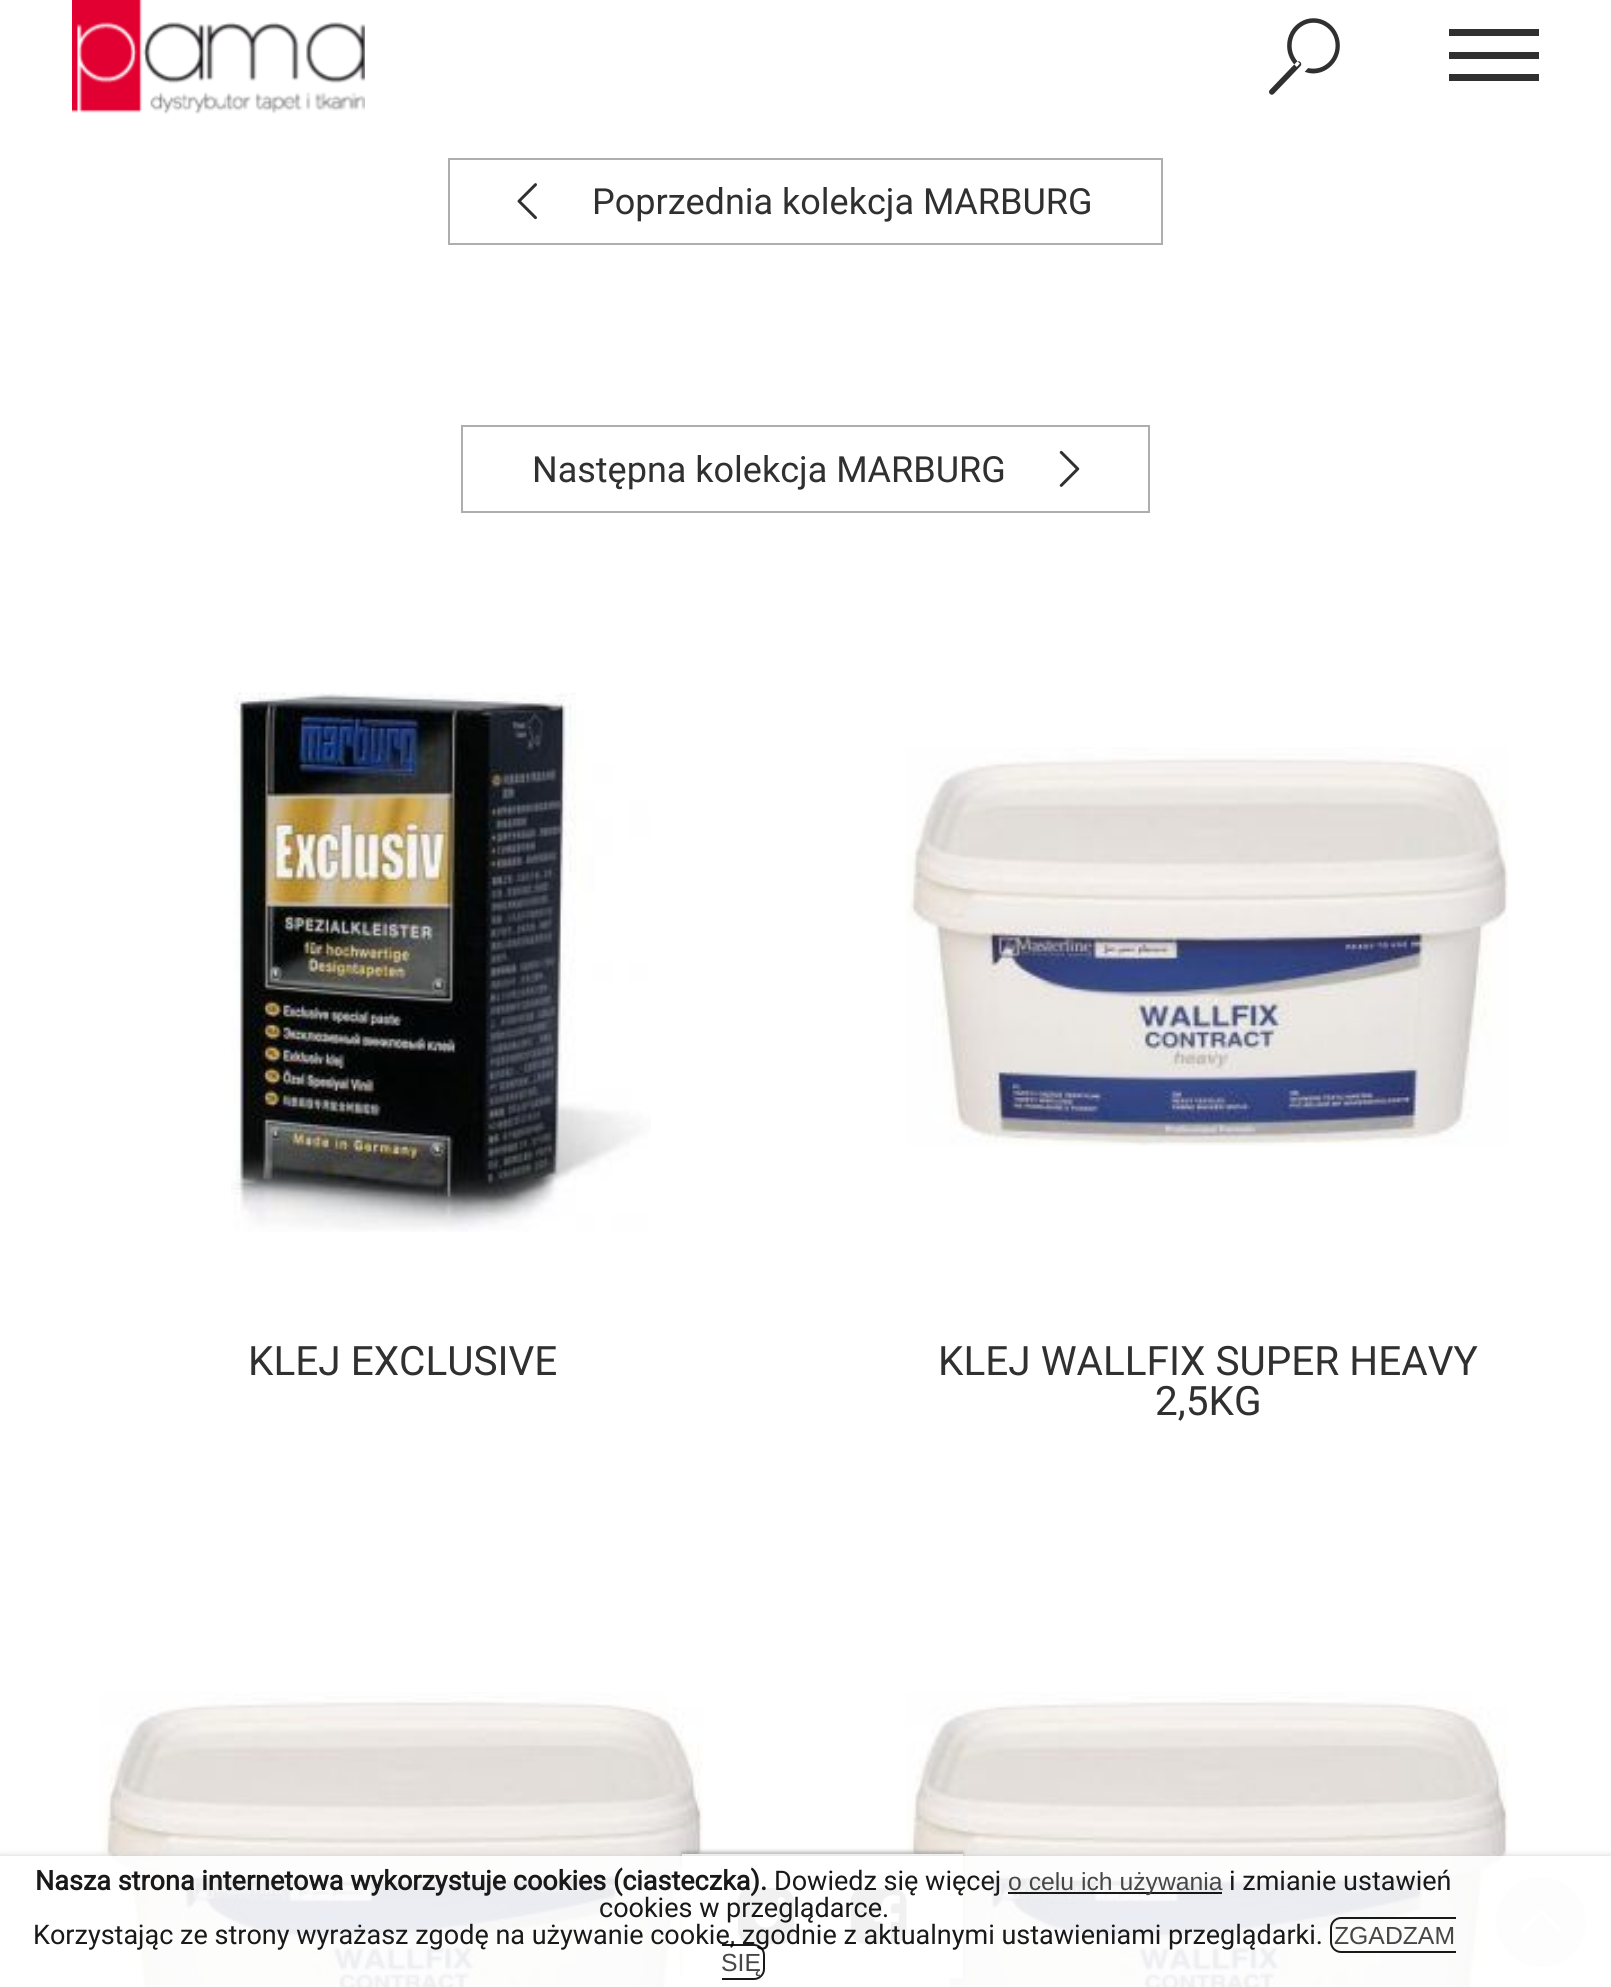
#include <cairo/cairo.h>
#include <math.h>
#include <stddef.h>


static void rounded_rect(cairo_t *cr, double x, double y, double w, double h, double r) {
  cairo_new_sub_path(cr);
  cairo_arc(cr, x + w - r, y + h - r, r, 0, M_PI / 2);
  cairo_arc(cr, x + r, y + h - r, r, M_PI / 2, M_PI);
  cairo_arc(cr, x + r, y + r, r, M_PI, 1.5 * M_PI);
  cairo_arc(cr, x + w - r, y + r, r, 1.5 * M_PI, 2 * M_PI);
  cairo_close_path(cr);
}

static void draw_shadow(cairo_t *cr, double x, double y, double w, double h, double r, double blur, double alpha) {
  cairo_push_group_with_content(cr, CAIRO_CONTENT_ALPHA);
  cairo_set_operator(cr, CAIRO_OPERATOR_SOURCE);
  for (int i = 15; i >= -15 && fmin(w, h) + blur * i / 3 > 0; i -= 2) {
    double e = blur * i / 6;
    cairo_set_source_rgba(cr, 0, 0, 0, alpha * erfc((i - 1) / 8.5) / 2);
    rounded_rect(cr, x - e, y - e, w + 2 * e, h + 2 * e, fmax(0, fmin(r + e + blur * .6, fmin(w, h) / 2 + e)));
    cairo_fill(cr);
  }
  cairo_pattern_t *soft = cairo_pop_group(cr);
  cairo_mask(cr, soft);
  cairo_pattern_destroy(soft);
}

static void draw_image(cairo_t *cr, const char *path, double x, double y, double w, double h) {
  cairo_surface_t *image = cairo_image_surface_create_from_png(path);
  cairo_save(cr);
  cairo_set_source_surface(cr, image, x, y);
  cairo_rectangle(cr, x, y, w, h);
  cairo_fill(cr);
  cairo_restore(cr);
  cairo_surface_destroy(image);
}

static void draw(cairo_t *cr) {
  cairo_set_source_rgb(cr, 1, 1, 1);
  cairo_paint(cr);
  draw_image(cr, "images/1.png", 72, 0, 293, 114);
  draw_image(cr, "images/2.png", 1269, 18, 71, 77);
  cairo_set_source_rgb(cr, 48 / 255.0, 48 / 255.0, 48 / 255.0);
  cairo_rectangle(cr, 1449, 29, 90, 7);
  cairo_fill(cr);
  cairo_rectangle(cr, 1449, 52, 90, 7);
  cairo_fill(cr);
  cairo_rectangle(cr, 1449, 74, 90, 7);
  cairo_fill(cr);
  cairo_rectangle(cr, 449, 159, 713, 85);
  cairo_set_source_rgb(cr, 174 / 255.0, 174 / 255.0, 174 / 255.0);
  cairo_stroke(cr);
  draw_image(cr, "images/3.png", 517, 183, 20, 37);
  cairo_rectangle(cr, 462, 426, 687, 86);
  cairo_stroke(cr);
  draw_image(cr, "images/4.png", 1059, 450, 21, 37);
  draw_image(cr, "images/5.png", 231, 692, 420, 540);
  draw_image(cr, "images/6.png", 906, 747, 602, 399);
  draw_image(cr, "images/7.png", 100, 1692, 603, 295);
  draw_image(cr, "images/8.png", 906, 1692, 602, 295);
  cairo_set_source_rgb(cr, 0, 0, 0);
  draw_shadow(cr, 682, 1852, 281, 124, 0, 2, 0.3);
  cairo_set_source_rgb(cr, 1, 1, 1);
  cairo_rectangle(cr, 682, 1854, 281, 124);
  cairo_fill(cr);
  draw_image(cr, "images/9.png", 738, 1888, 56, 56);
  draw_image(cr, "images/10.png", 851, 1888, 56, 56);
  cairo_set_source_rgb(cr, 233 / 255.0, 233 / 255.0, 233 / 255.0);
  cairo_arc(cr, 1541, 1922, 45, 0, 2 * M_PI);
  cairo_fill(cr);
  cairo_set_source_rgb(cr, 1, 1, 1);
  cairo_new_path(cr);
  cairo_move_to(cr, 1559, 1931);
  cairo_line_to(cr, 1541, 1914);
  cairo_line_to(cr, 1527, 1928);
  cairo_curve_to(cr, 1526, 1929, 1523, 1934, 1521, 1931);
  cairo_line_to(cr, 1521, 1929);
  cairo_line_to(cr, 1541, 1910);
  cairo_curve_to(cr, 1543, 1910, 1548, 1916, 1549, 1917);
  cairo_line_to(cr, 1558, 1926);
  cairo_curve_to(cr, 1558, 1926, 1564, 1931, 1560, 1932);
  cairo_close_path(cr);
  cairo_fill(cr);
  cairo_save(cr);
  cairo_set_fill_rule(cr, CAIRO_FILL_RULE_EVEN_ODD);
  cairo_new_path(cr);
  cairo_move_to(cr, 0, 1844);
  cairo_line_to(cr, 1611, 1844);
  cairo_line_to(cr, 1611, 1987);
  cairo_line_to(cr, 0, 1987);
  cairo_close_path(cr);
  cairo_move_to(cr, 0, 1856);
  cairo_line_to(cr, 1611, 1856);
  cairo_line_to(cr, 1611, 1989);
  cairo_line_to(cr, 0, 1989);
  cairo_close_path(cr);
  cairo_clip(cr);
  cairo_set_source_rgb(cr, 204 / 255.0, 204 / 255.0, 204 / 255.0);
  draw_shadow(cr, 0, 1856, 1611, 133, 0, 3.5, 0.9);
  cairo_restore(cr);
  cairo_set_source_rgba(cr, 1, 1, 1, 0.9);
  cairo_rectangle(cr, 0, 1856, 1611, 131);
  cairo_fill(cr);
  cairo_set_source_rgba(cr, 0, 0, 0, 0.9);
  cairo_rectangle(cr, 1008, 1892, 214, 2);
  cairo_fill(cr);
  cairo_set_fill_rule(cr, CAIRO_FILL_RULE_EVEN_ODD);
  cairo_new_path(cr);
  cairo_move_to(cr, 1341, 1917);
  cairo_line_to(cr, 1456, 1917);
  cairo_line_to(cr, 1456, 1953);
  cairo_line_to(cr, 1341, 1953);
  cairo_curve_to(cr, 1335, 1953, 1330, 1948, 1330, 1942);
  cairo_line_to(cr, 1330, 1928);
  cairo_curve_to(cr, 1330, 1922, 1335, 1917, 1341, 1917);
  cairo_close_path(cr);
  cairo_move_to(cr, 1341, 1919);
  cairo_line_to(cr, 1456, 1919);
  cairo_line_to(cr, 1456, 1951);
  cairo_line_to(cr, 1341, 1951);
  cairo_curve_to(cr, 1336, 1951, 1332, 1947, 1332, 1942);
  cairo_line_to(cr, 1332, 1928);
  cairo_curve_to(cr, 1332, 1923, 1336, 1919, 1341, 1919);
  cairo_close_path(cr);
  cairo_fill(cr);
  cairo_select_font_face(cr, "Roboto", CAIRO_FONT_SLANT_NORMAL, CAIRO_FONT_WEIGHT_NORMAL);
  cairo_set_font_size(cr, 36);
  cairo_set_source_rgb(cr, 48 / 255.0, 48 / 255.0, 48 / 255.0);
  cairo_move_to(cr, 592, 214);
  cairo_show_text(cr, "Poprzednia kolekcja MARBURG");
  cairo_move_to(cr, 532, 482);
  cairo_show_text(cr, "Następna kolekcja MARBURG");
  cairo_set_font_size(cr, 40.5);
  cairo_move_to(cr, 248, 1375);
  cairo_show_text(cr, "KLEJ EXCLUSIVE");
  cairo_move_to(cr, 938, 1375);
  cairo_show_text(cr, "KLEJ WALLFIX SUPER HEAVY");
  cairo_move_to(cr, 1155, 1415);
  cairo_show_text(cr, "2,5KG");
  cairo_select_font_face(cr, "Roboto", CAIRO_FONT_SLANT_NORMAL, CAIRO_FONT_WEIGHT_BOLD);
  cairo_set_font_size(cr, 27);
  cairo_set_source_rgb(cr, 25 / 255.0, 25 / 255.0, 25 / 255.0);
  cairo_move_to(cr, 35, 1890);
  cairo_show_text(cr, "Nasza strona internetowa wykorzystuje cookies (ciasteczka).");
  cairo_select_font_face(cr, "Roboto", CAIRO_FONT_SLANT_NORMAL, CAIRO_FONT_WEIGHT_NORMAL);
  cairo_move_to(cr, 774, 1890);
  cairo_show_text(cr, "Dowiedz się więcej");
  cairo_select_font_face(cr, "Liberation Sans", CAIRO_FONT_SLANT_NORMAL, CAIRO_FONT_WEIGHT_NORMAL);
  cairo_set_font_size(cr, 24.75);
  cairo_set_source_rgb(cr, 70 / 255.0, 70 / 255.0, 70 / 255.0);
  cairo_move_to(cr, 1008, 1890);
  cairo_show_text(cr, "o celu ich używania");
  cairo_select_font_face(cr, "Roboto", CAIRO_FONT_SLANT_NORMAL, CAIRO_FONT_WEIGHT_NORMAL);
  cairo_set_font_size(cr, 27);
  cairo_set_source_rgb(cr, 25 / 255.0, 25 / 255.0, 25 / 255.0);
  cairo_move_to(cr, 1229, 1890);
  cairo_show_text(cr, "i zmianie ustawień");
  cairo_move_to(cr, 599, 1917);
  cairo_show_text(cr, "cookies w przeglądarce.");
  cairo_move_to(cr, 33, 1944);
  cairo_show_text(cr, "Korzystając ze strony wyrażasz zgodę na używanie cookie, zgodnie z aktualnymi ustawieniami przeglądarki.");
  cairo_select_font_face(cr, "Liberation Sans", CAIRO_FONT_SLANT_NORMAL, CAIRO_FONT_WEIGHT_NORMAL);
  cairo_set_font_size(cr, 24.75);
  cairo_set_source_rgb(cr, 70 / 255.0, 70 / 255.0, 70 / 255.0);
  cairo_move_to(cr, 1334, 1944);
  cairo_show_text(cr, "ZGADZAM");
  cairo_set_source_rgba(cr, 0, 0, 0, 0.9);
  cairo_new_path(cr);
  cairo_move_to(cr, 722, 1944);
  cairo_line_to(cr, 754, 1944);
  cairo_curve_to(cr, 760, 1944, 765, 1949, 765, 1955);
  cairo_line_to(cr, 765, 1969);
  cairo_curve_to(cr, 765, 1975, 760, 1980, 754, 1980);
  cairo_line_to(cr, 722, 1980);
  cairo_close_path(cr);
  cairo_move_to(cr, 722, 1946);
  cairo_line_to(cr, 754, 1946);
  cairo_curve_to(cr, 759, 1946, 763, 1950, 763, 1955);
  cairo_line_to(cr, 763, 1969);
  cairo_curve_to(cr, 763, 1974, 759, 1978, 754, 1978);
  cairo_line_to(cr, 722, 1978);
  cairo_close_path(cr);
  cairo_fill(cr);
  cairo_set_source_rgb(cr, 70 / 255.0, 70 / 255.0, 70 / 255.0);
  cairo_move_to(cr, 721, 1971);
  cairo_show_text(cr, "SIĘ");
}

int main(void) {
  cairo_surface_t *surface = cairo_image_surface_create(CAIRO_FORMAT_RGB24, 1611, 1987);
  cairo_t *cr = cairo_create(surface);
  cairo_font_options_t *options = cairo_font_options_create();
  cairo_font_options_set_hint_metrics(options, CAIRO_HINT_METRICS_OFF);
  cairo_font_options_set_hint_style(options, CAIRO_HINT_STYLE_NONE);
  cairo_set_font_options(cr, options);
  cairo_set_miter_limit(cr, 4);
  draw(cr);
  cairo_surface_write_to_png(surface, "out.png");
  cairo_font_options_destroy(options);
  cairo_destroy(cr);
  cairo_surface_destroy(surface);
  return 0;
}
